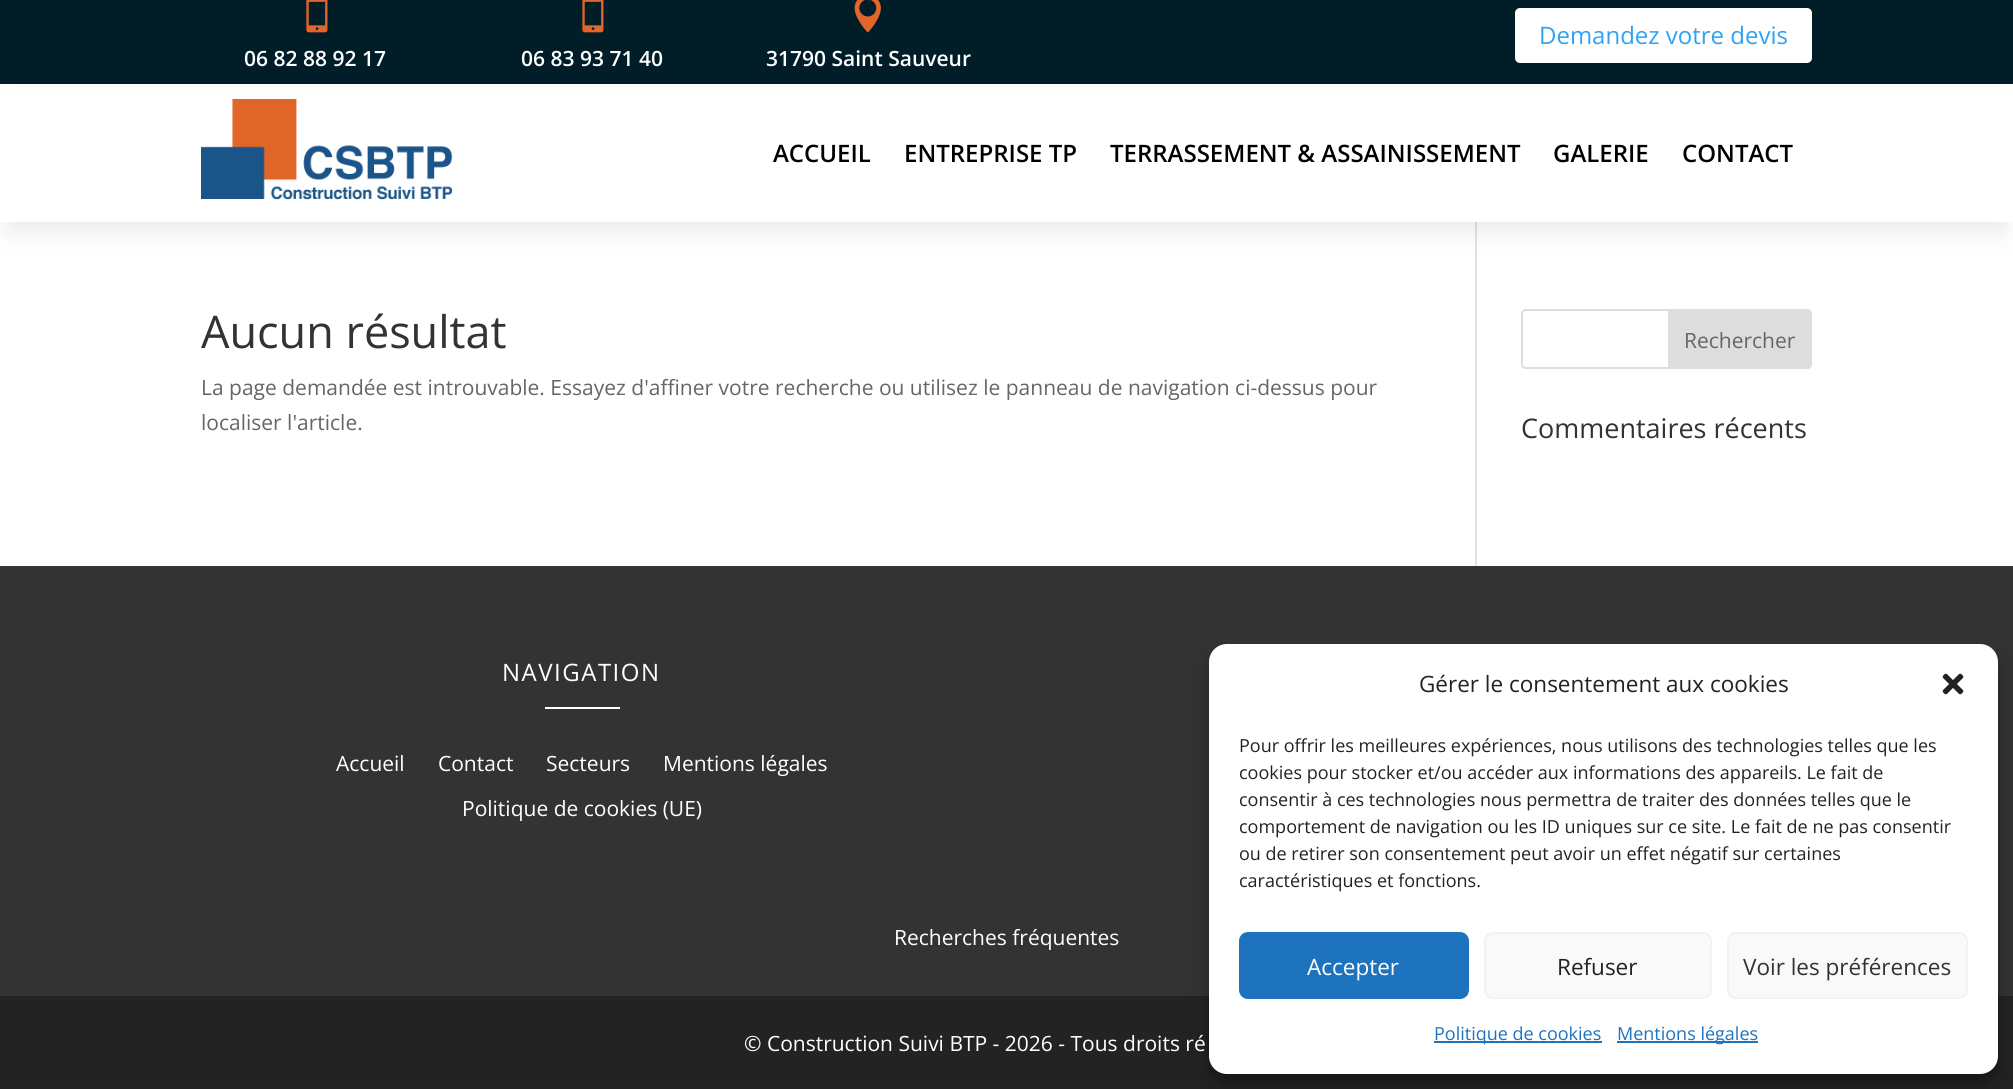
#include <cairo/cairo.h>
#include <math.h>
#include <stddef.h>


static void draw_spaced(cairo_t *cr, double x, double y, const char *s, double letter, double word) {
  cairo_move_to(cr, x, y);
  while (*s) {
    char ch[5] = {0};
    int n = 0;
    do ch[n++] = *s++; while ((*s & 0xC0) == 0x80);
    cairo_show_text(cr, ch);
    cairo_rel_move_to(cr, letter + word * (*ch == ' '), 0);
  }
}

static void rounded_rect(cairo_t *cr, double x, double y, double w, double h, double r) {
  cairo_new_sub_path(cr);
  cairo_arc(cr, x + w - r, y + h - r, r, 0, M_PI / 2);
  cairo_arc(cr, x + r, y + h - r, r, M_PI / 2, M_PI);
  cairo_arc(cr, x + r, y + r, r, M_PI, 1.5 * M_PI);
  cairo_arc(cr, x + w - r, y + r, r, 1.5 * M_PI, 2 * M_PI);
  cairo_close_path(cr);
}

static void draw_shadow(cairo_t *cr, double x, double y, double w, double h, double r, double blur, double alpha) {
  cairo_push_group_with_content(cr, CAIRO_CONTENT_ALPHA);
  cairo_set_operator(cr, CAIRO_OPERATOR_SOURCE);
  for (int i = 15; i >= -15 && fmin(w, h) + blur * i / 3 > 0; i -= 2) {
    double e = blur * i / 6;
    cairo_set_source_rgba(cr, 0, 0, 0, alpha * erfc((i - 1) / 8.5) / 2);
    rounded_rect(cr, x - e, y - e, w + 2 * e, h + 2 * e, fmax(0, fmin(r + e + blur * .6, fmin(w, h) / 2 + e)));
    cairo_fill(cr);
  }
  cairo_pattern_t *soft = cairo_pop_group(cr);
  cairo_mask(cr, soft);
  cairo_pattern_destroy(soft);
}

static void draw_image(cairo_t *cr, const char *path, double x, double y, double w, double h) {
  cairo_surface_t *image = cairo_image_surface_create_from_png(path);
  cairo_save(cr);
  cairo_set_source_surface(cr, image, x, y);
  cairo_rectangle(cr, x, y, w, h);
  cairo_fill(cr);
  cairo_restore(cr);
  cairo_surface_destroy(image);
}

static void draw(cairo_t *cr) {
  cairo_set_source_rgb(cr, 1, 1, 1);
  cairo_paint(cr);
  cairo_set_source_rgb(cr, 0, 29 / 255.0, 40 / 255.0);
  cairo_rectangle(cr, 0, 0, 2013, 84);
  cairo_fill(cr);
  cairo_set_source_rgb(cr, 1, 1, 1);
  rounded_rect(cr, 1515, 8, 297, 55, 5);
  cairo_fill(cr);
  draw_image(cr, "images/1.png", 306, 0, 22, 33);
  draw_image(cr, "images/1.png", 582, 0, 22, 33);
  draw_image(cr, "images/2.png", 854, 0, 27, 33);
  cairo_set_source_rgb(cr, 226 / 255.0, 226 / 255.0, 226 / 255.0);
  cairo_rectangle(cr, 1475, 222, 2, 344);
  cairo_fill(cr);
  cairo_set_source_rgb(cr, 0, 0, 0);
  draw_shadow(cr, 9, 111, 1995, 120, 0, 13.5, 0.09);
  cairo_set_source_rgb(cr, 1, 1, 1);
  cairo_rectangle(cr, 0, 95, 2013, 127);
  cairo_fill(cr);
  draw_image(cr, "images/3.png", 201, 99, 252, 101);
  rounded_rect(cr, 1522, 310, 289, 58, 4);
  cairo_set_source_rgb(cr, 221 / 255.0, 221 / 255.0, 221 / 255.0);
  cairo_stroke(cr);
  cairo_new_path(cr);
  cairo_move_to(cr, 1669, 310);
  cairo_line_to(cr, 1807, 310);
  cairo_curve_to(cr, 1809, 310, 1811, 312, 1811, 314);
  cairo_line_to(cr, 1811, 364);
  cairo_curve_to(cr, 1811, 366, 1809, 368, 1807, 368);
  cairo_line_to(cr, 1669, 368);
  cairo_close_path(cr);
  cairo_fill_preserve(cr);
  cairo_stroke(cr);
  cairo_set_source_rgb(cr, 51 / 255.0, 51 / 255.0, 51 / 255.0);
  cairo_rectangle(cr, 0, 566, 2013, 430);
  cairo_fill(cr);
  cairo_set_source_rgb(cr, 1, 1, 1);
  cairo_rectangle(cr, 545, 707, 75, 2);
  cairo_fill(cr);
  cairo_set_source_rgb(cr, 35 / 255.0, 35 / 255.0, 35 / 255.0);
  cairo_rectangle(cr, 0, 996, 2013, 93);
  cairo_fill(cr);
  cairo_set_source_rgb(cr, 0, 0, 0);
  draw_shadow(cr, 1209, 653, 789, 430, 18, 4.5, 0.23);
  draw_shadow(cr, 1209, 659, 789, 430, 18, 15, 0.19);
  cairo_set_source_rgb(cr, 1, 1, 1);
  rounded_rect(cr, 1209, 644, 789, 430, 18);
  cairo_fill(cr);
  draw_image(cr, "images/4.png", 1942, 673, 22, 22);
  cairo_set_source_rgb(cr, 30 / 255.0, 115 / 255.0, 190 / 255.0);
  rounded_rect(cr, 1240, 933, 228, 65, 8);
  cairo_fill_preserve(cr);
  cairo_stroke(cr);
  cairo_set_source_rgb(cr, 249 / 255.0, 249 / 255.0, 249 / 255.0);
  rounded_rect(cr, 1485, 933, 226, 65, 8);
  cairo_fill_preserve(cr);
  cairo_set_source_rgb(cr, 242 / 255.0, 242 / 255.0, 242 / 255.0);
  cairo_stroke(cr);
  cairo_set_source_rgb(cr, 249 / 255.0, 249 / 255.0, 249 / 255.0);
  rounded_rect(cr, 1728, 933, 239, 65, 8);
  cairo_fill_preserve(cr);
  cairo_set_source_rgb(cr, 242 / 255.0, 242 / 255.0, 242 / 255.0);
  cairo_stroke(cr);
  cairo_set_source_rgb(cr, 30 / 255.0, 115 / 255.0, 190 / 255.0);
  cairo_rectangle(cr, 1434, 1041, 168, 2);
  cairo_fill(cr);
  cairo_rectangle(cr, 1617, 1041, 141, 2);
  cairo_fill(cr);
  cairo_select_font_face(cr, "Open Sans", CAIRO_FONT_SLANT_NORMAL, CAIRO_FONT_WEIGHT_NORMAL);
  cairo_set_font_size(cr, 24);
  cairo_set_source_rgb(cr, 46 / 255.0, 163 / 255.0, 242 / 255.0);
  cairo_move_to(cr, 1539, 44);
  cairo_show_text(cr, "Demandez votre devis");
  cairo_select_font_face(cr, "Open Sans SemiBold", CAIRO_FONT_SLANT_NORMAL, CAIRO_FONT_WEIGHT_NORMAL);
  cairo_set_font_size(cr, 21);
  cairo_set_source_rgb(cr, 1, 1, 1);
  cairo_move_to(cr, 244, 66);
  cairo_show_text(cr, "06 82 88 92 17");
  cairo_move_to(cr, 521, 66);
  cairo_show_text(cr, "06 83 93 71 40");
  cairo_move_to(cr, 766, 66);
  cairo_show_text(cr, "31790 Saint Sauveur");
  cairo_set_font_size(cr, 24);
  cairo_set_source_rgb(cr, 0, 0, 0);
  cairo_move_to(cr, 773, 162);
  cairo_show_text(cr, "ACCUEIL");
  cairo_move_to(cr, 904, 162);
  cairo_show_text(cr, "ENTREPRISE TP");
  cairo_move_to(cr, 1110, 162);
  cairo_show_text(cr, "TERRASSEMENT & ASSAINISSEMENT");
  cairo_move_to(cr, 1553, 162);
  cairo_show_text(cr, "GALERIE");
  cairo_move_to(cr, 1682, 162);
  cairo_show_text(cr, "CONTACT");
  cairo_select_font_face(cr, "Open Sans", CAIRO_FONT_SLANT_NORMAL, CAIRO_FONT_WEIGHT_NORMAL);
  cairo_set_font_size(cr, 45);
  cairo_set_source_rgb(cr, 51 / 255.0, 51 / 255.0, 51 / 255.0);
  cairo_move_to(cr, 201, 348);
  cairo_show_text(cr, "Aucun résultat");
  cairo_set_font_size(cr, 21);
  cairo_set_source_rgb(cr, 102 / 255.0, 102 / 255.0, 102 / 255.0);
  cairo_move_to(cr, 201, 395);
  cairo_show_text(cr, "La page demandée est introuvable. Essayez d'affiner votre recherche ou utilisez le panneau de navigation ci-dessus pour");
  cairo_move_to(cr, 201, 430);
  cairo_show_text(cr, "localiser l'article.");
  cairo_move_to(cr, 1684, 348);
  cairo_show_text(cr, "Rechercher");
  cairo_set_font_size(cr, 27);
  cairo_set_source_rgb(cr, 51 / 255.0, 51 / 255.0, 51 / 255.0);
  cairo_move_to(cr, 1521, 438);
  cairo_show_text(cr, "Commentaires récents");
  cairo_set_font_size(cr, 24);
  cairo_set_source_rgb(cr, 1, 1, 1);
  draw_spaced(cr, 502, 681, "NAVIGATION", 1.5, 0);
  cairo_set_font_size(cr, 21);
  cairo_move_to(cr, 336, 771);
  cairo_show_text(cr, "Accueil");
  cairo_move_to(cr, 438, 771);
  cairo_show_text(cr, "Contact");
  cairo_move_to(cr, 546, 771);
  cairo_show_text(cr, "Secteurs");
  cairo_move_to(cr, 663, 771);
  cairo_show_text(cr, "Mentions légales");
  cairo_move_to(cr, 462, 816);
  cairo_show_text(cr, "Politique de cookies (UE)");
  cairo_move_to(cr, 894, 945);
  cairo_show_text(cr, "Recherches fréquentes");
  cairo_move_to(cr, 744, 1051);
  cairo_show_text(cr, "© Construction Suivi BTP - 2026 - Tous droits ré");
  cairo_set_font_size(cr, 22.5);
  cairo_set_source_rgb(cr, 34 / 255.0, 34 / 255.0, 34 / 255.0);
  cairo_move_to(cr, 1419, 692);
  cairo_show_text(cr, "Gérer le consentement aux cookies");
  cairo_set_font_size(cr, 18);
  cairo_move_to(cr, 1239, 752);
  cairo_show_text(cr, "Pour offrir les meilleures expériences, nous utilisons des technologies telles que les");
  cairo_move_to(cr, 1239, 779);
  cairo_show_text(cr, "cookies pour stocker et/ou accéder aux informations des appareils. Le fait de");
  cairo_move_to(cr, 1239, 806);
  cairo_show_text(cr, "consentir à ces technologies nous permettra de traiter des données telles que le");
  cairo_move_to(cr, 1239, 833);
  cairo_show_text(cr, "comportement de navigation ou les ID uniques sur ce site. Le fait de ne pas consentir");
  cairo_move_to(cr, 1239, 860);
  cairo_show_text(cr, "ou de retirer son consentement peut avoir un effet négatif sur certaines");
  cairo_move_to(cr, 1239, 887);
  cairo_show_text(cr, "caractéristiques et fonctions.");
  cairo_set_font_size(cr, 22.5);
  cairo_set_source_rgb(cr, 1, 1, 1);
  cairo_move_to(cr, 1307, 975);
  cairo_show_text(cr, "Accepter");
  cairo_set_source_rgb(cr, 34 / 255.0, 34 / 255.0, 34 / 255.0);
  cairo_move_to(cr, 1557, 975);
  cairo_show_text(cr, "Refuser");
  cairo_set_source_rgb(cr, 51 / 255.0, 51 / 255.0, 51 / 255.0);
  cairo_move_to(cr, 1743, 975);
  cairo_show_text(cr, "Voir les préférences");
  cairo_set_font_size(cr, 18);
  cairo_set_source_rgb(cr, 30 / 255.0, 115 / 255.0, 190 / 255.0);
  cairo_move_to(cr, 1434, 1040);
  cairo_show_text(cr, "Politique de cookies");
  cairo_move_to(cr, 1617, 1040);
  cairo_show_text(cr, "Mentions légales");
}

int main(void) {
  cairo_surface_t *surface = cairo_image_surface_create(CAIRO_FORMAT_RGB24, 2013, 1089);
  cairo_t *cr = cairo_create(surface);
  cairo_font_options_t *options = cairo_font_options_create();
  cairo_font_options_set_hint_metrics(options, CAIRO_HINT_METRICS_OFF);
  cairo_font_options_set_hint_style(options, CAIRO_HINT_STYLE_NONE);
  cairo_set_font_options(cr, options);
  cairo_set_miter_limit(cr, 4);
  draw(cr);
  cairo_surface_write_to_png(surface, "out.png");
  cairo_font_options_destroy(options);
  cairo_destroy(cr);
  cairo_surface_destroy(surface);
  return 0;
}
